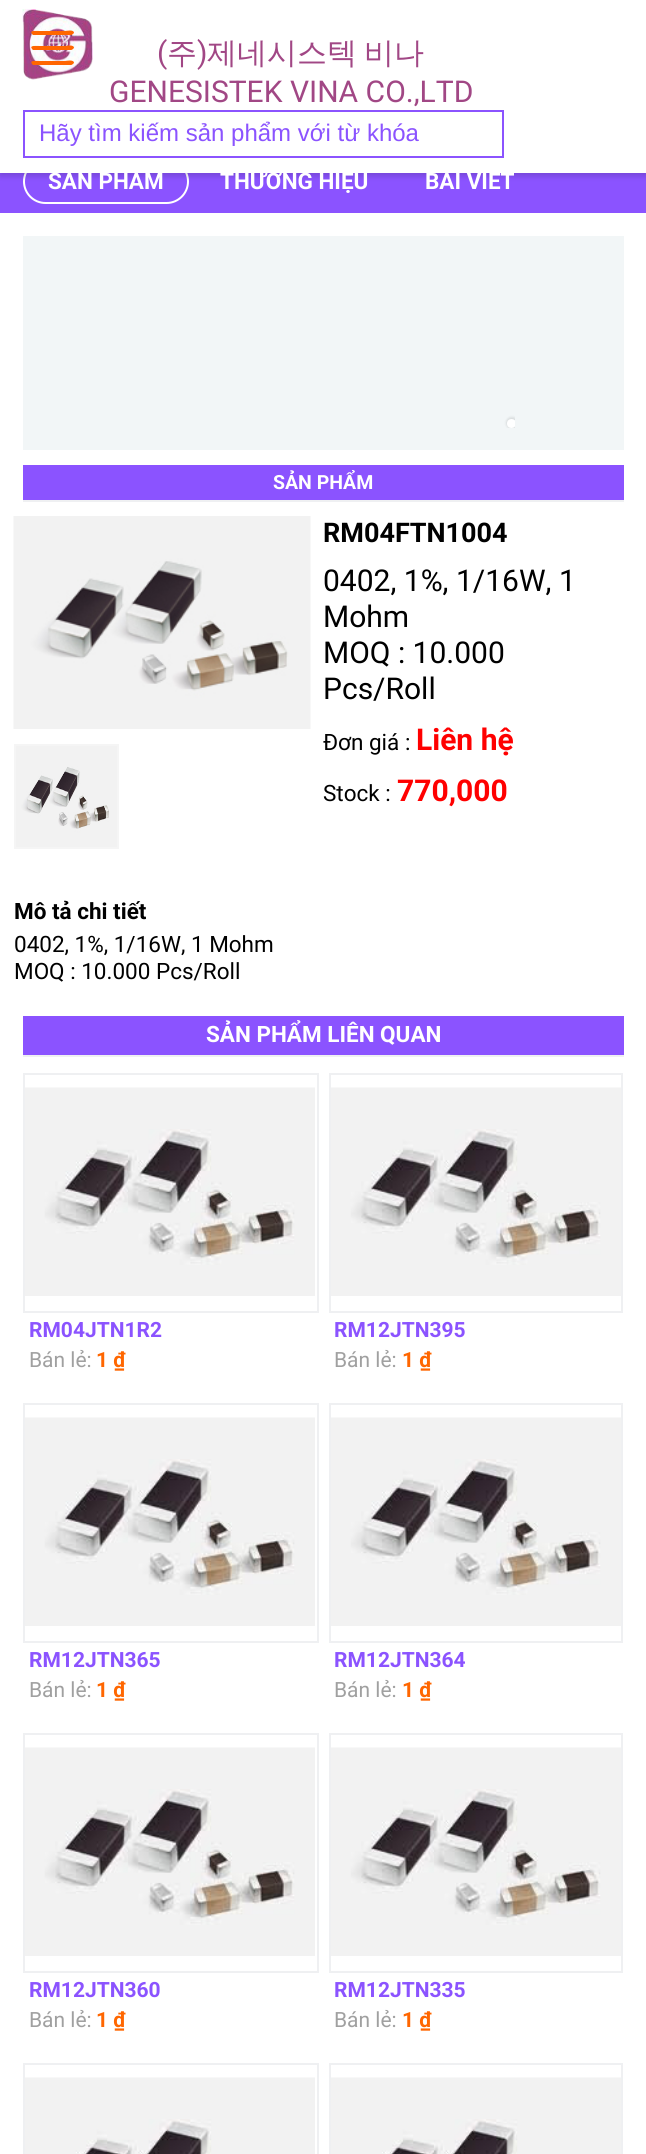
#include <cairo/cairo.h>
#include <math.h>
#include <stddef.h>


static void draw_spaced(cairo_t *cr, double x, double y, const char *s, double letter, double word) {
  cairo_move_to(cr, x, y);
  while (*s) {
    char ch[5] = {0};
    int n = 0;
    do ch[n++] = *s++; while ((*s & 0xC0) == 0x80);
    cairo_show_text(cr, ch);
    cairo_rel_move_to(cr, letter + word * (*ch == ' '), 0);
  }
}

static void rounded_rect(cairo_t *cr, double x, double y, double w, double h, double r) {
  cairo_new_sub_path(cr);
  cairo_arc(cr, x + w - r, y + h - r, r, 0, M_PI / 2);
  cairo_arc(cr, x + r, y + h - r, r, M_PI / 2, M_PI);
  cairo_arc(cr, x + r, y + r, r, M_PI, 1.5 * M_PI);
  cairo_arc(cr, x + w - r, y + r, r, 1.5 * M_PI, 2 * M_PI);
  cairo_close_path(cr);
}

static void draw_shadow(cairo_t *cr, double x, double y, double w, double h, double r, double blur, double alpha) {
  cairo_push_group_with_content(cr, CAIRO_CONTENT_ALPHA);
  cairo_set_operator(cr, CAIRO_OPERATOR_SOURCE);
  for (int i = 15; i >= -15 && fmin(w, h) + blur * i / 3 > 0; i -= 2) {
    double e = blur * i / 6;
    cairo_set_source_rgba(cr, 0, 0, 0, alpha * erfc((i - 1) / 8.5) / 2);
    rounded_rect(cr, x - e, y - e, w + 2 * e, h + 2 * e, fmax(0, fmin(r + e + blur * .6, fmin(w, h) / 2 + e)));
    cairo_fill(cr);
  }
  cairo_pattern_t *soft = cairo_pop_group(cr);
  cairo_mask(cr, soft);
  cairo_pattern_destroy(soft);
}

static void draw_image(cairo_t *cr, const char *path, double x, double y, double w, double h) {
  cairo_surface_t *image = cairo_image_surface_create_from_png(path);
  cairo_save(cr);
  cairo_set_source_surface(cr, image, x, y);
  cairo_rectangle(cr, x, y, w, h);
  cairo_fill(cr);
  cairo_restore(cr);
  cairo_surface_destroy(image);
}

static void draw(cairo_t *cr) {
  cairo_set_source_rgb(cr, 1, 1, 1);
  cairo_paint(cr);
  cairo_set_source_rgb(cr, 139 / 255.0, 83 / 255.0, 1);
  cairo_rectangle(cr, 0, 173, 646, 40);
  cairo_fill(cr);
  rounded_rect(cr, 24, 160, 164, 43, 21.5);
  cairo_set_source_rgb(cr, 1, 1, 1);
  cairo_stroke(cr);
  cairo_set_source_rgb(cr, 0, 0, 0);
  draw_shadow(cr, 0, 3, 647, 173, 0, 3, 0.16);
  cairo_set_source_rgb(cr, 1, 1, 1);
  cairo_rectangle(cr, 0, 0, 646, 173);
  cairo_fill(cr);
  draw_image(cr, "images/1.png", 22, 9, 71, 71);
  cairo_set_source_rgb(cr, 1, 102 / 255.0, 0);
  cairo_new_path(cr);
  cairo_move_to(cr, 71, 50);
  cairo_line_to(cr, 33, 50);
  cairo_line_to(cr, 32, 49);
  cairo_curve_to(cr, 29, 45, 36, 46, 40, 46);
  cairo_line_to(cr, 65, 46);
  cairo_curve_to(cr, 66, 46, 74, 44, 74, 48);
  cairo_curve_to(cr, 73, 49, 72, 50, 71, 50);
  cairo_close_path(cr);
  cairo_move_to(cr, 71, 65);
  cairo_line_to(cr, 33, 65);
  cairo_line_to(cr, 32, 64);
  cairo_curve_to(cr, 29, 60, 36, 61, 40, 61);
  cairo_line_to(cr, 65, 61);
  cairo_curve_to(cr, 66, 61, 74, 59, 74, 63);
  cairo_curve_to(cr, 73, 64, 72, 65, 71, 65);
  cairo_close_path(cr);
  cairo_move_to(cr, 71, 35);
  cairo_line_to(cr, 33, 35);
  cairo_line_to(cr, 32, 34);
  cairo_curve_to(cr, 29, 30, 36, 31, 40, 31);
  cairo_line_to(cr, 65, 31);
  cairo_curve_to(cr, 66, 31, 74, 29, 74, 33);
  cairo_curve_to(cr, 73, 34, 72, 35, 71, 35);
  cairo_close_path(cr);
  cairo_fill(cr);
  cairo_rectangle(cr, 24, 111, 479, 46);
  cairo_set_source_rgb(cr, 139 / 255.0, 83 / 255.0, 1);
  cairo_stroke(cr);
  cairo_set_source_rgb(cr, 242 / 255.0, 246 / 255.0, 247 / 255.0);
  cairo_rectangle(cr, 23, 236, 601, 214);
  cairo_fill(cr);
  cairo_save(cr);
  cairo_rectangle(cr, 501, 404, 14, 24);
  cairo_clip(cr);
  cairo_set_source_rgb(cr, 0, 0, 0);
  draw_shadow(cr, 506, 417, 12, 12, 6, 1, 0.1);
  cairo_restore(cr);
  cairo_save(cr);
  cairo_rectangle(cr, 501, 404, 14, 24);
  cairo_clip(cr);
  cairo_set_source_rgb(cr, 1, 1, 1);
  cairo_arc(cr, 511.5, 423.5, 4.5, 0, 2 * M_PI);
  cairo_fill(cr);
  cairo_restore(cr);
  cairo_set_source_rgb(cr, 139 / 255.0, 83 / 255.0, 1);
  cairo_rectangle(cr, 23, 465, 601, 35);
  cairo_fill(cr);
  cairo_set_source_rgb(cr, 239 / 255.0, 240 / 255.0, 242 / 255.0);
  cairo_rectangle(cr, 23, 500, 601, 2);
  cairo_fill(cr);
  draw_image(cr, "images/2.png", 13, 516, 298, 213);
  cairo_rectangle(cr, 15, 745, 103, 103);
  cairo_set_source_rgb(cr, 245 / 255.0, 245 / 255.0, 245 / 255.0);
  cairo_stroke(cr);
  draw_image(cr, "images/3.png", 16, 746, 101, 101);
  cairo_set_source_rgb(cr, 139 / 255.0, 83 / 255.0, 1);
  cairo_rectangle(cr, 23, 1016, 601, 39);
  cairo_fill(cr);
  cairo_set_source_rgb(cr, 239 / 255.0, 240 / 255.0, 242 / 255.0);
  cairo_rectangle(cr, 23, 1055, 601, 2);
  cairo_fill(cr);
  cairo_rectangle(cr, 23, 1073, 295, 2);
  cairo_fill(cr);
  cairo_rectangle(cr, 317, 1073, 2, 240);
  cairo_fill(cr);
  cairo_rectangle(cr, 23, 1311, 295, 2);
  cairo_fill(cr);
  cairo_rectangle(cr, 23, 1073, 2, 240);
  cairo_fill(cr);
  draw_image(cr, "images/4.png", 25, 1087, 290, 209);
  cairo_rectangle(cr, 329, 1073, 294, 2);
  cairo_fill(cr);
  cairo_rectangle(cr, 621, 1073, 2, 240);
  cairo_fill(cr);
  cairo_rectangle(cr, 329, 1311, 294, 2);
  cairo_fill(cr);
  cairo_rectangle(cr, 329, 1073, 2, 240);
  cairo_fill(cr);
  draw_image(cr, "images/4.png", 331, 1087, 290, 209);
  cairo_rectangle(cr, 23, 1403, 295, 2);
  cairo_fill(cr);
  cairo_rectangle(cr, 317, 1403, 2, 240);
  cairo_fill(cr);
  cairo_rectangle(cr, 23, 1641, 295, 2);
  cairo_fill(cr);
  cairo_rectangle(cr, 23, 1403, 2, 240);
  cairo_fill(cr);
  draw_image(cr, "images/4.png", 25, 1417, 290, 209);
  cairo_rectangle(cr, 329, 1403, 294, 2);
  cairo_fill(cr);
  cairo_rectangle(cr, 621, 1403, 2, 240);
  cairo_fill(cr);
  cairo_rectangle(cr, 329, 1641, 294, 2);
  cairo_fill(cr);
  cairo_rectangle(cr, 329, 1403, 2, 240);
  cairo_fill(cr);
  draw_image(cr, "images/4.png", 331, 1417, 290, 209);
  cairo_rectangle(cr, 23, 1733, 295, 2);
  cairo_fill(cr);
  cairo_rectangle(cr, 317, 1733, 2, 240);
  cairo_fill(cr);
  cairo_rectangle(cr, 23, 1971, 295, 2);
  cairo_fill(cr);
  cairo_rectangle(cr, 23, 1733, 2, 240);
  cairo_fill(cr);
  draw_image(cr, "images/4.png", 25, 1747, 290, 209);
  cairo_rectangle(cr, 329, 1733, 294, 2);
  cairo_fill(cr);
  cairo_rectangle(cr, 621, 1733, 2, 240);
  cairo_fill(cr);
  cairo_rectangle(cr, 329, 1971, 294, 2);
  cairo_fill(cr);
  cairo_rectangle(cr, 329, 1733, 2, 240);
  cairo_fill(cr);
  draw_image(cr, "images/4.png", 331, 1747, 290, 209);
  cairo_rectangle(cr, 23, 2063, 295, 2);
  cairo_fill(cr);
  cairo_rectangle(cr, 317, 2063, 2, 91);
  cairo_fill(cr);
  cairo_rectangle(cr, 23, 2063, 2, 91);
  cairo_fill(cr);
  draw_image(cr, "images/5.png", 25, 2077, 290, 77);
  cairo_rectangle(cr, 329, 2063, 294, 2);
  cairo_fill(cr);
  cairo_rectangle(cr, 621, 2063, 2, 91);
  cairo_fill(cr);
  cairo_rectangle(cr, 329, 2063, 2, 91);
  cairo_fill(cr);
  draw_image(cr, "images/5.png", 331, 2077, 290, 77);
  cairo_select_font_face(cr, "Roboto", CAIRO_FONT_SLANT_NORMAL, CAIRO_FONT_WEIGHT_NORMAL);
  cairo_set_font_size(cr, 30);
  cairo_set_source_rgb(cr, 161 / 255.0, 71 / 255.0, 133 / 255.0);
  cairo_move_to(cr, 157, 63);
  cairo_show_text(cr, "(");
  cairo_select_font_face(cr, "WenQuanYi Zen Hei Medium", CAIRO_FONT_SLANT_NORMAL, CAIRO_FONT_WEIGHT_NORMAL);
  cairo_move_to(cr, 167, 63);
  cairo_show_text(cr, "주");
  cairo_select_font_face(cr, "Roboto", CAIRO_FONT_SLANT_NORMAL, CAIRO_FONT_WEIGHT_NORMAL);
  cairo_move_to(cr, 197, 63);
  cairo_show_text(cr, ")");
  cairo_select_font_face(cr, "WenQuanYi Zen Hei Medium", CAIRO_FONT_SLANT_NORMAL, CAIRO_FONT_WEIGHT_NORMAL);
  draw_spaced(cr, 207, 63, "제네시스텍 비나", 0, -2);
  cairo_select_font_face(cr, "Roboto", CAIRO_FONT_SLANT_NORMAL, CAIRO_FONT_WEIGHT_NORMAL);
  cairo_move_to(cr, 109, 102);
  cairo_show_text(cr, "GENESISTEK VINA CO.,LTD");
  cairo_select_font_face(cr, "Liberation Sans", CAIRO_FONT_SLANT_NORMAL, CAIRO_FONT_WEIGHT_NORMAL);
  cairo_set_font_size(cr, 24);
  cairo_set_source_rgb(cr, 139 / 255.0, 83 / 255.0, 1);
  cairo_move_to(cr, 39, 141);
  cairo_show_text(cr, "Hãy tìm kiếm sản phẩm với từ khóa");
  cairo_select_font_face(cr, "Roboto", CAIRO_FONT_SLANT_NORMAL, CAIRO_FONT_WEIGHT_BOLD);
  cairo_set_font_size(cr, 22.5);
  cairo_set_source_rgb(cr, 1, 1, 1);
  cairo_move_to(cr, 48, 189);
  cairo_show_text(cr, "SẢN PHẨM");
  cairo_move_to(cr, 220, 189);
  cairo_show_text(cr, "THƯƠNG HIỆU");
  cairo_move_to(cr, 425, 189);
  cairo_show_text(cr, "BÀI VIẾT");
  cairo_set_font_size(cr, 19.5);
  cairo_move_to(cr, 273, 489);
  cairo_show_text(cr, "SẢN PHẨM");
  cairo_set_font_size(cr, 27);
  cairo_set_source_rgb(cr, 0, 0, 0);
  cairo_move_to(cr, 323, 542);
  cairo_show_text(cr, "RM04FTN1004");
  cairo_select_font_face(cr, "Roboto", CAIRO_FONT_SLANT_NORMAL, CAIRO_FONT_WEIGHT_NORMAL);
  cairo_set_font_size(cr, 30);
  cairo_move_to(cr, 323, 591);
  cairo_show_text(cr, "0402, 1%, 1/16W, 1");
  cairo_move_to(cr, 323, 627);
  cairo_show_text(cr, "Mohm");
  cairo_move_to(cr, 323, 663);
  cairo_show_text(cr, "MOQ : 10.000");
  cairo_move_to(cr, 323, 699);
  cairo_show_text(cr, "Pcs/Roll");
  cairo_set_font_size(cr, 22.5);
  cairo_move_to(cr, 323, 750);
  cairo_show_text(cr, "Đơn giá :");
  cairo_select_font_face(cr, "Roboto", CAIRO_FONT_SLANT_NORMAL, CAIRO_FONT_WEIGHT_BOLD);
  cairo_set_font_size(cr, 30);
  cairo_set_source_rgb(cr, 1, 0, 0);
  cairo_move_to(cr, 416, 750);
  cairo_show_text(cr, "Liên hệ");
  cairo_select_font_face(cr, "Roboto", CAIRO_FONT_SLANT_NORMAL, CAIRO_FONT_WEIGHT_NORMAL);
  cairo_set_font_size(cr, 22.5);
  cairo_set_source_rgb(cr, 0, 0, 0);
  cairo_move_to(cr, 323, 801);
  cairo_show_text(cr, "Stock :");
  cairo_select_font_face(cr, "Roboto", CAIRO_FONT_SLANT_NORMAL, CAIRO_FONT_WEIGHT_BOLD);
  cairo_set_font_size(cr, 30);
  cairo_set_source_rgb(cr, 1, 0, 0);
  cairo_move_to(cr, 397, 801);
  cairo_show_text(cr, "770,000");
  cairo_set_font_size(cr, 22.5);
  cairo_set_source_rgb(cr, 0, 0, 0);
  cairo_move_to(cr, 14, 919);
  cairo_show_text(cr, "Mô tả chi tiết");
  cairo_select_font_face(cr, "Roboto", CAIRO_FONT_SLANT_NORMAL, CAIRO_FONT_WEIGHT_NORMAL);
  cairo_move_to(cr, 14, 952);
  cairo_show_text(cr, "0402, 1%, 1/16W, 1 Mohm");
  cairo_move_to(cr, 14, 979);
  cairo_show_text(cr, "MOQ : 10.000 Pcs/Roll");
  cairo_select_font_face(cr, "Roboto", CAIRO_FONT_SLANT_NORMAL, CAIRO_FONT_WEIGHT_BOLD);
  cairo_set_source_rgb(cr, 1, 1, 1);
  cairo_move_to(cr, 206, 1042);
  cairo_show_text(cr, "SẢN PHẨM LIÊN QUAN");
  cairo_set_font_size(cr, 21);
  cairo_set_source_rgb(cr, 139 / 255.0, 83 / 255.0, 1);
  cairo_move_to(cr, 29, 1337);
  cairo_show_text(cr, "RM04JTN1R2");
  cairo_select_font_face(cr, "Roboto", CAIRO_FONT_SLANT_NORMAL, CAIRO_FONT_WEIGHT_NORMAL);
  cairo_set_source_rgb(cr, 160 / 255.0, 160 / 255.0, 160 / 255.0);
  cairo_move_to(cr, 29, 1367);
  cairo_show_text(cr, "Bán lẻ:");
  cairo_select_font_face(cr, "Roboto", CAIRO_FONT_SLANT_NORMAL, CAIRO_FONT_WEIGHT_BOLD);
  cairo_set_source_rgb(cr, 1, 102 / 255.0, 0);
  cairo_move_to(cr, 96, 1367);
  cairo_show_text(cr, "1 ₫");
  cairo_set_source_rgb(cr, 139 / 255.0, 83 / 255.0, 1);
  cairo_move_to(cr, 334, 1337);
  cairo_show_text(cr, "RM12JTN395");
  cairo_select_font_face(cr, "Roboto", CAIRO_FONT_SLANT_NORMAL, CAIRO_FONT_WEIGHT_NORMAL);
  cairo_set_source_rgb(cr, 160 / 255.0, 160 / 255.0, 160 / 255.0);
  cairo_move_to(cr, 334, 1367);
  cairo_show_text(cr, "Bán lẻ:");
  cairo_select_font_face(cr, "Roboto", CAIRO_FONT_SLANT_NORMAL, CAIRO_FONT_WEIGHT_BOLD);
  cairo_set_source_rgb(cr, 1, 102 / 255.0, 0);
  cairo_move_to(cr, 402, 1367);
  cairo_show_text(cr, "1 ₫");
  cairo_set_source_rgb(cr, 139 / 255.0, 83 / 255.0, 1);
  cairo_move_to(cr, 29, 1667);
  cairo_show_text(cr, "RM12JTN365");
  cairo_select_font_face(cr, "Roboto", CAIRO_FONT_SLANT_NORMAL, CAIRO_FONT_WEIGHT_NORMAL);
  cairo_set_source_rgb(cr, 160 / 255.0, 160 / 255.0, 160 / 255.0);
  cairo_move_to(cr, 29, 1697);
  cairo_show_text(cr, "Bán lẻ:");
  cairo_select_font_face(cr, "Roboto", CAIRO_FONT_SLANT_NORMAL, CAIRO_FONT_WEIGHT_BOLD);
  cairo_set_source_rgb(cr, 1, 102 / 255.0, 0);
  cairo_move_to(cr, 96, 1697);
  cairo_show_text(cr, "1 ₫");
  cairo_set_source_rgb(cr, 139 / 255.0, 83 / 255.0, 1);
  cairo_move_to(cr, 334, 1667);
  cairo_show_text(cr, "RM12JTN364");
  cairo_select_font_face(cr, "Roboto", CAIRO_FONT_SLANT_NORMAL, CAIRO_FONT_WEIGHT_NORMAL);
  cairo_set_source_rgb(cr, 160 / 255.0, 160 / 255.0, 160 / 255.0);
  cairo_move_to(cr, 334, 1697);
  cairo_show_text(cr, "Bán lẻ:");
  cairo_select_font_face(cr, "Roboto", CAIRO_FONT_SLANT_NORMAL, CAIRO_FONT_WEIGHT_BOLD);
  cairo_set_source_rgb(cr, 1, 102 / 255.0, 0);
  cairo_move_to(cr, 402, 1697);
  cairo_show_text(cr, "1 ₫");
  cairo_set_source_rgb(cr, 139 / 255.0, 83 / 255.0, 1);
  cairo_move_to(cr, 29, 1997);
  cairo_show_text(cr, "RM12JTN360");
  cairo_select_font_face(cr, "Roboto", CAIRO_FONT_SLANT_NORMAL, CAIRO_FONT_WEIGHT_NORMAL);
  cairo_set_source_rgb(cr, 160 / 255.0, 160 / 255.0, 160 / 255.0);
  cairo_move_to(cr, 29, 2027);
  cairo_show_text(cr, "Bán lẻ:");
  cairo_select_font_face(cr, "Roboto", CAIRO_FONT_SLANT_NORMAL, CAIRO_FONT_WEIGHT_BOLD);
  cairo_set_source_rgb(cr, 1, 102 / 255.0, 0);
  cairo_move_to(cr, 96, 2027);
  cairo_show_text(cr, "1 ₫");
  cairo_set_source_rgb(cr, 139 / 255.0, 83 / 255.0, 1);
  cairo_move_to(cr, 334, 1997);
  cairo_show_text(cr, "RM12JTN335");
  cairo_select_font_face(cr, "Roboto", CAIRO_FONT_SLANT_NORMAL, CAIRO_FONT_WEIGHT_NORMAL);
  cairo_set_source_rgb(cr, 160 / 255.0, 160 / 255.0, 160 / 255.0);
  cairo_move_to(cr, 334, 2027);
  cairo_show_text(cr, "Bán lẻ:");
  cairo_select_font_face(cr, "Roboto", CAIRO_FONT_SLANT_NORMAL, CAIRO_FONT_WEIGHT_BOLD);
  cairo_set_source_rgb(cr, 1, 102 / 255.0, 0);
  cairo_move_to(cr, 402, 2027);
  cairo_show_text(cr, "1 ₫");
}

int main(void) {
  cairo_surface_t *surface = cairo_image_surface_create(CAIRO_FORMAT_RGB24, 646, 2154);
  cairo_t *cr = cairo_create(surface);
  cairo_font_options_t *options = cairo_font_options_create();
  cairo_font_options_set_hint_metrics(options, CAIRO_HINT_METRICS_OFF);
  cairo_font_options_set_hint_style(options, CAIRO_HINT_STYLE_NONE);
  cairo_set_font_options(cr, options);
  cairo_set_miter_limit(cr, 4);
  draw(cr);
  cairo_surface_write_to_png(surface, "out.png");
  cairo_font_options_destroy(options);
  cairo_destroy(cr);
  cairo_surface_destroy(surface);
  return 0;
}
